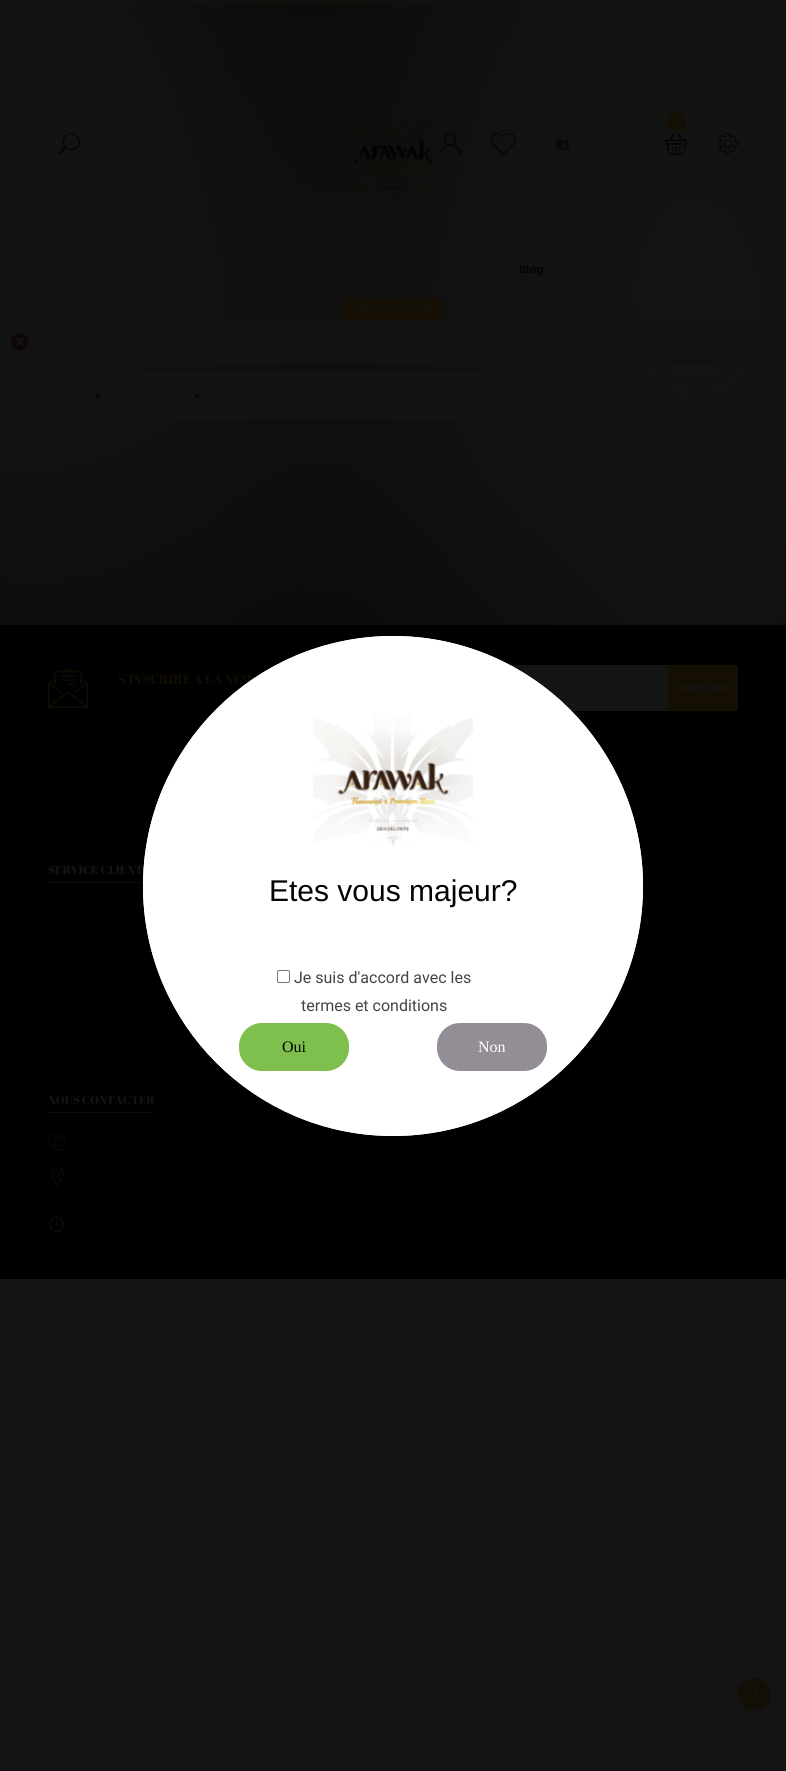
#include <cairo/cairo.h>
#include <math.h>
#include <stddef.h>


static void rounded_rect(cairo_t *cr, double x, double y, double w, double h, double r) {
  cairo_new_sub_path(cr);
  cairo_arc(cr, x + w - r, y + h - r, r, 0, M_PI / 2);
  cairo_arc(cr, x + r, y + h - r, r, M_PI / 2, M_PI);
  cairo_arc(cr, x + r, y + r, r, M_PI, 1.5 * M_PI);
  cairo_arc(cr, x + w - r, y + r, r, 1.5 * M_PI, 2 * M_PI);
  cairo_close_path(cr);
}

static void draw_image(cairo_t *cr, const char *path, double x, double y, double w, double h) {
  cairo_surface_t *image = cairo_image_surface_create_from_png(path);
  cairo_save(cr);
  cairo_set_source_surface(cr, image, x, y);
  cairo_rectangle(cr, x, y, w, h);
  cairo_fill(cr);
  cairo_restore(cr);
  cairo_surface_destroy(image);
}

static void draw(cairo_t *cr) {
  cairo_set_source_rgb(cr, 20 / 255.0, 20 / 255.0, 20 / 255.0);
  cairo_paint(cr);
  draw_image(cr, "images/1.png", 0, 0, 786, 625);
  draw_image(cr, "images/2.png", 58, 133, 22, 22);
  draw_image(cr, "images/3.png", 353, 108, 98, 91);
  draw_image(cr, "images/4.png", 439, 133, 22, 22);
  draw_image(cr, "images/5.png", 491, 133, 25, 22);
  draw_image(cr, "images/6.png", 556, 139, 13, 11);
  cairo_set_source_rgb(cr, 20 / 255.0, 14 / 255.0, 3 / 255.0);
  cairo_arc(cr, 676.5, 121.5, 9.5, 0, 2 * M_PI);
  cairo_fill(cr);
  draw_image(cr, "images/7.png", 665, 133, 22, 22);
  draw_image(cr, "images/8.png", 717, 133, 21, 21);
  rounded_rect(cr, 344.5, 298.5, 97, 21, 2.5);
  cairo_fill_preserve(cr);
  cairo_set_source_rgb(cr, 19 / 255.0, 14 / 255.0, 6 / 255.0);
  cairo_set_line_width(cr, 1);
  cairo_stroke(cr);
  cairo_set_source_rgb(cr, 19 / 255.0, 18 / 255.0, 18 / 255.0);
  rounded_rect(cr, 0, 320, 786, 44, 2);
  cairo_fill(cr);
  draw_image(cr, "images/9.png", 11, 333, 18, 18);
  cairo_set_source_rgb(cr, 19 / 255.0, 19 / 255.0, 20 / 255.0);
  cairo_rectangle(cr, 0, 372, 565, 47);
  cairo_fill(cr);
  cairo_set_source_rgb(cr, 8 / 255.0, 8 / 255.0, 8 / 255.0);
  cairo_new_path(cr);
  cairo_move_to(cr, 98, 393);
  cairo_line_to(cr, 101, 396);
  cairo_line_to(cr, 98, 398.5);
  cairo_line_to(cr, 95, 396);
  cairo_close_path(cr);
  cairo_fill(cr);
  cairo_new_path(cr);
  cairo_move_to(cr, 197, 393);
  cairo_line_to(cr, 200, 396);
  cairo_line_to(cr, 197, 398.5);
  cairo_line_to(cr, 194, 396);
  cairo_close_path(cr);
  cairo_fill(cr);
  cairo_set_source_rgb(cr, 18 / 255.0, 18 / 255.0, 18 / 255.0);
  cairo_rectangle(cr, 48, 524, 210, 1);
  cairo_fill(cr);
  cairo_set_source_rgb(cr, 0, 0, 0);
  cairo_rectangle(cr, 0, 625, 786, 654);
  cairo_fill(cr);
  draw_image(cr, "images/10.png", 48, 668, 40, 40);
  cairo_set_source_rgb(cr, 20 / 255.0, 20 / 255.0, 20 / 255.0);
  rounded_rect(cr, 468, 665, 270, 46, 3);
  cairo_fill(cr);
  cairo_save(cr);
  rounded_rect(cr, 468, 665, 270, 46, 3);
  cairo_clip(cr);
  cairo_set_source_rgb(cr, 20 / 255.0, 14 / 255.0, 3 / 255.0);
  rounded_rect(cr, 668, 665, 71, 46, 3);
  cairo_fill(cr);
  cairo_restore(cr);
  cairo_set_source_rgb(cr, 17 / 255.0, 12 / 255.0, 3 / 255.0);
  cairo_rectangle(cr, 48, 882, 94, 1);
  cairo_fill(cr);
  cairo_rectangle(cr, 48, 1112, 106, 1);
  cairo_fill(cr);
  draw_image(cr, "images/11.png", 48, 1133, 18, 18);
  draw_image(cr, "images/12.png", 50, 1167, 14, 19);
  draw_image(cr, "images/13.png", 49, 1217, 15, 15);
  cairo_set_source_rgb(cr, 20 / 255.0, 15 / 255.0, 6 / 255.0);
  cairo_arc(cr, 754.5, 1694.5, 16.5, 0, 2 * M_PI);
  cairo_fill(cr);
  draw_image(cr, "images/14.png", 752, 1688, 6, 13);
  cairo_select_font_face(cr, "Poppins SemiBold", CAIRO_FONT_SLANT_NORMAL, CAIRO_FONT_WEIGHT_NORMAL);
  cairo_set_font_size(cr, 11);
  cairo_set_source_rgb(cr, 3 / 255.0, 3 / 255.0, 3 / 255.0);
  cairo_move_to(cr, 519, 273);
  cairo_show_text(cr, "Blog");
  cairo_select_font_face(cr, "Roboto", CAIRO_FONT_SLANT_NORMAL, CAIRO_FONT_WEIGHT_BOLD);
  cairo_set_font_size(cr, 9.25);
  cairo_set_source_rgb(cr, 20 / 255.0, 20 / 255.0, 20 / 255.0);
  cairo_move_to(cr, 353, 311);
  cairo_show_text(cr, "NOUS CONTACTER");
  cairo_select_font_face(cr, "Abril Fatface", CAIRO_FONT_SLANT_NORMAL, CAIRO_FONT_WEIGHT_NORMAL);
  cairo_set_font_size(cr, 13.25);
  cairo_set_source_rgb(cr, 17 / 255.0, 12 / 255.0, 3 / 255.0);
  cairo_move_to(cr, 118, 684);
  cairo_show_text(cr, "S'INSCRIRE A LA NEW");
  cairo_select_font_face(cr, "Roboto", CAIRO_FONT_SLANT_NORMAL, CAIRO_FONT_WEIGHT_BOLD);
  cairo_set_font_size(cr, 9.25);
  cairo_set_source_rgb(cr, 20 / 255.0, 20 / 255.0, 20 / 255.0);
  cairo_move_to(cr, 679, 691);
  cairo_show_text(cr, "SOUSCRIRE");
  cairo_select_font_face(cr, "Abril Fatface", CAIRO_FONT_SLANT_NORMAL, CAIRO_FONT_WEIGHT_NORMAL);
  cairo_set_font_size(cr, 11.75);
  cairo_move_to(cr, 48, 874);
  cairo_show_text(cr, "SERVICE CLIENT");
  cairo_move_to(cr, 48, 1104);
  cairo_show_text(cr, "NOUS CONTACTER");
  cairo_set_source_rgb(cr, 1, 1, 1);
  cairo_new_path(cr);
  cairo_arc(cr, 393, 886, 250, 0, 2 * M_PI);
  cairo_fill(cr);
  draw_image(cr, "images/15.png", 313, 714, 160, 132);
  cairo_arc(cr, 393, 886, 248, 0, 2 * M_PI);
  cairo_set_line_width(cr, 4);
  cairo_stroke(cr);
  cairo_select_font_face(cr, "Liberation Sans", CAIRO_FONT_SLANT_NORMAL, CAIRO_FONT_WEIGHT_NORMAL);
  cairo_set_font_size(cr, 30);
  cairo_set_source_rgb(cr, 3 / 255.0, 3 / 255.0, 3 / 255.0);
  cairo_move_to(cr, 269, 901);
  cairo_show_text(cr, "Etes vous majeur?");
  rounded_rect(cr, 277.5, 970.5, 12, 12, 1.5);
  cairo_set_source_rgb(cr, 118 / 255.0, 118 / 255.0, 118 / 255.0);
  cairo_set_line_width(cr, 1);
  cairo_stroke(cr);
  cairo_select_font_face(cr, "Roboto", CAIRO_FONT_SLANT_NORMAL, CAIRO_FONT_WEIGHT_NORMAL);
  cairo_set_font_size(cr, 16);
  cairo_set_source_rgb(cr, 68 / 255.0, 68 / 255.0, 68 / 255.0);
  cairo_move_to(cr, 294, 983);
  cairo_show_text(cr, "Je suis d'accord avec les");
  cairo_move_to(cr, 301, 1011);
  cairo_show_text(cr, "termes et conditions");
  cairo_set_source_rgb(cr, 127 / 255.0, 191 / 255.0, 77 / 255.0);
  rounded_rect(cr, 239, 1023, 110, 48, 23);
  cairo_fill(cr);
  cairo_select_font_face(cr, "Liberation Serif", CAIRO_FONT_SLANT_NORMAL, CAIRO_FONT_WEIGHT_NORMAL);
  cairo_set_source_rgb(cr, 3 / 255.0, 3 / 255.0, 3 / 255.0);
  cairo_move_to(cr, 282, 1052);
  cairo_show_text(cr, "Oui");
  cairo_set_source_rgb(cr, 147 / 255.0, 141 / 255.0, 149 / 255.0);
  rounded_rect(cr, 437, 1023, 110, 48, 23);
  cairo_fill(cr);
  cairo_set_source_rgb(cr, 1, 1, 1);
  cairo_move_to(cr, 478, 1052);
  cairo_show_text(cr, "Non");
}

int main(void) {
  cairo_surface_t *surface = cairo_image_surface_create(CAIRO_FORMAT_RGB24, 786, 1771);
  cairo_t *cr = cairo_create(surface);
  cairo_font_options_t *options = cairo_font_options_create();
  cairo_font_options_set_hint_metrics(options, CAIRO_HINT_METRICS_OFF);
  cairo_font_options_set_hint_style(options, CAIRO_HINT_STYLE_NONE);
  cairo_set_font_options(cr, options);
  cairo_set_miter_limit(cr, 4);
  draw(cr);
  cairo_surface_write_to_png(surface, "out.png");
  cairo_font_options_destroy(options);
  cairo_destroy(cr);
  cairo_surface_destroy(surface);
  return 0;
}
